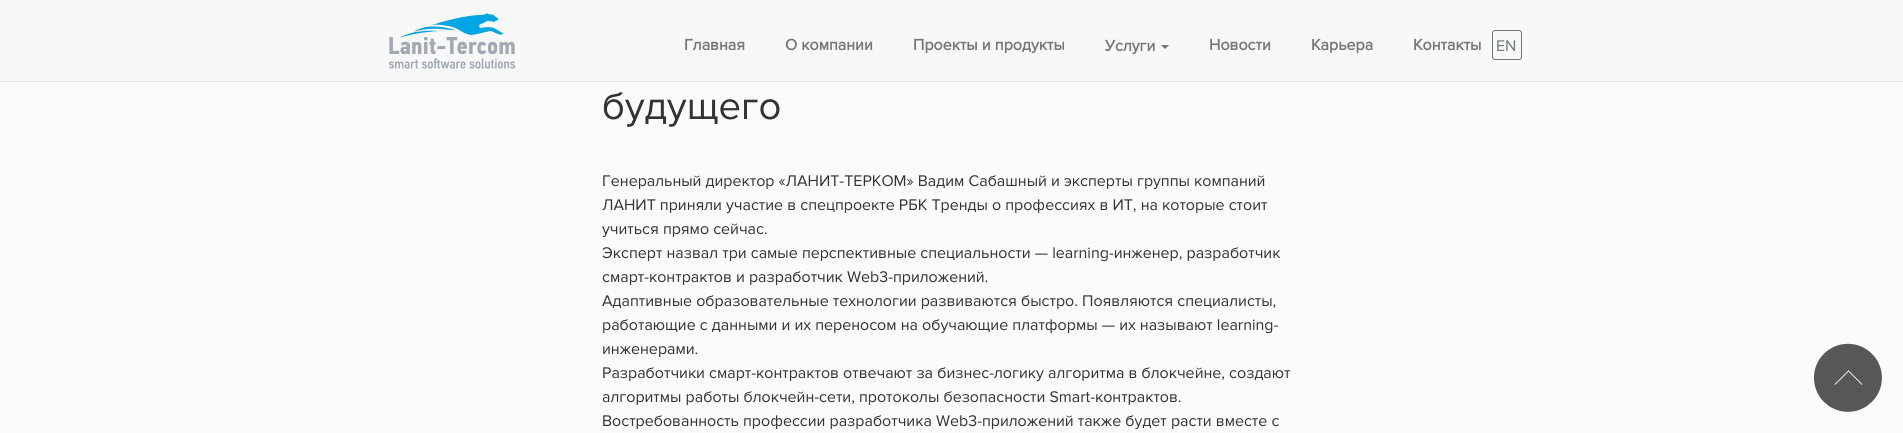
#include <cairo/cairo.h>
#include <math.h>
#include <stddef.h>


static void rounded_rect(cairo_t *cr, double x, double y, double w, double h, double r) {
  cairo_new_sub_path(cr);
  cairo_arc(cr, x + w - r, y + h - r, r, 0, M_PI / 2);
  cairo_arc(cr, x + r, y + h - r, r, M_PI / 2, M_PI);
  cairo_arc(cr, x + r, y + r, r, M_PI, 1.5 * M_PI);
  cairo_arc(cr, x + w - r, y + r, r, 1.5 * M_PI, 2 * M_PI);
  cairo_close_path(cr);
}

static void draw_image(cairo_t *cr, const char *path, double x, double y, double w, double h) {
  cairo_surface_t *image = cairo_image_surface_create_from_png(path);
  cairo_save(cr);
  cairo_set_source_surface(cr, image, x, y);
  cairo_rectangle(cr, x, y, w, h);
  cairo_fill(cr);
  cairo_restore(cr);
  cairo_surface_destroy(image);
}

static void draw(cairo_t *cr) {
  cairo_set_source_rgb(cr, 250 / 255.0, 251 / 255.0, 252 / 255.0);
  cairo_paint(cr);
  cairo_set_source_rgb(cr, 248 / 255.0, 248 / 255.0, 248 / 255.0);
  cairo_rectangle(cr, 0, 0, 1903, 81);
  cairo_fill(cr);
  cairo_set_source_rgb(cr, 231 / 255.0, 231 / 255.0, 231 / 255.0);
  cairo_rectangle(cr, 0, 81, 1903, 1);
  cairo_fill(cr);
  draw_image(cr, "images/1.png", 389, 13, 127, 56);
  cairo_set_source_rgb(cr, 115 / 255.0, 115 / 255.0, 115 / 255.0);
  cairo_new_path(cr);
  cairo_move_to(cr, 1161, 45);
  cairo_line_to(cr, 1169, 45);
  cairo_line_to(cr, 1165, 49);
  cairo_close_path(cr);
  cairo_fill(cr);
  rounded_rect(cr, 1492.5, 30.5, 29, 29, 2.5);
  cairo_set_source_rgb(cr, 112 / 255.0, 120 / 255.0, 123 / 255.0);
  cairo_set_line_width(cr, 1);
  cairo_stroke(cr);
  draw_image(cr, "images/2.png", 1813, 343, 69, 69);
  cairo_select_font_face(cr, "Proxima Nova", CAIRO_FONT_SLANT_NORMAL, CAIRO_FONT_WEIGHT_BOLD);
  cairo_set_font_size(cr, 16);
  cairo_set_source_rgb(cr, 119 / 255.0, 119 / 255.0, 119 / 255.0);
  cairo_move_to(cr, 684, 50);
  cairo_show_text(cr, "Главная");
  cairo_move_to(cr, 785, 50);
  cairo_show_text(cr, "О компании");
  cairo_move_to(cr, 913, 50);
  cairo_show_text(cr, "Проекты и продукты");
  cairo_move_to(cr, 1105, 51);
  cairo_show_text(cr, "Услуги");
  cairo_move_to(cr, 1209, 50);
  cairo_show_text(cr, "Новости");
  cairo_move_to(cr, 1311, 50);
  cairo_show_text(cr, "Карьера");
  cairo_move_to(cr, 1413, 50);
  cairo_show_text(cr, "Контакты");
  cairo_select_font_face(cr, "Proxima Nova", CAIRO_FONT_SLANT_NORMAL, CAIRO_FONT_WEIGHT_NORMAL);
  cairo_set_source_rgb(cr, 112 / 255.0, 120 / 255.0, 123 / 255.0);
  cairo_move_to(cr, 1496, 51);
  cairo_show_text(cr, "EN");
  cairo_set_font_size(cr, 40);
  cairo_set_source_rgb(cr, 51 / 255.0, 51 / 255.0, 51 / 255.0);
  cairo_move_to(cr, 602, 119);
  cairo_show_text(cr, "будущего");
  cairo_set_font_size(cr, 16);
  cairo_move_to(cr, 602, 186);
  cairo_show_text(cr, "Генеральный директор «ЛАНИТ-ТЕРКОМ» Вадим Сабашный и эксперты группы компаний");
  cairo_move_to(cr, 602, 210);
  cairo_show_text(cr, "ЛАНИТ приняли участие в спецпроекте РБК Тренды о профессиях в ИТ, на которые стоит");
  cairo_move_to(cr, 602, 234);
  cairo_show_text(cr, "учиться прямо сейчас.");
  cairo_move_to(cr, 602, 258);
  cairo_show_text(cr, "Эксперт назвал три самые перспективные специальности — learning-инженер, разработчик");
  cairo_move_to(cr, 602, 282);
  cairo_show_text(cr, "смарт-контрактов и разработчик Web3-приложений.");
  cairo_move_to(cr, 602, 306);
  cairo_show_text(cr, "Адаптивные образовательные технологии развиваются быстро. Появляются специалисты,");
  cairo_move_to(cr, 602, 330);
  cairo_show_text(cr, "работающие с данными и их переносом на обучающие платформы — их называют learning-");
  cairo_move_to(cr, 602, 354);
  cairo_show_text(cr, "инженерами.");
  cairo_move_to(cr, 602, 378);
  cairo_show_text(cr, "Разработчики смарт-контрактов отвечают за бизнес-логику алгоритма в блокчейне, создают");
  cairo_move_to(cr, 602, 402);
  cairo_show_text(cr, "алгоритмы работы блокчейн-сети, протоколы безопасности Smart-контрактов.");
  cairo_move_to(cr, 602, 426);
  cairo_show_text(cr, "Востребованность профессии разработчика Web3-приложений также будет расти вместе с");
}

int main(void) {
  cairo_surface_t *surface = cairo_image_surface_create(CAIRO_FORMAT_RGB24, 1903, 433);
  cairo_t *cr = cairo_create(surface);
  cairo_font_options_t *options = cairo_font_options_create();
  cairo_font_options_set_hint_metrics(options, CAIRO_HINT_METRICS_OFF);
  cairo_font_options_set_hint_style(options, CAIRO_HINT_STYLE_NONE);
  cairo_set_font_options(cr, options);
  cairo_set_miter_limit(cr, 4);
  draw(cr);
  cairo_surface_write_to_png(surface, "out.png");
  cairo_font_options_destroy(options);
  cairo_destroy(cr);
  cairo_surface_destroy(surface);
  return 0;
}
